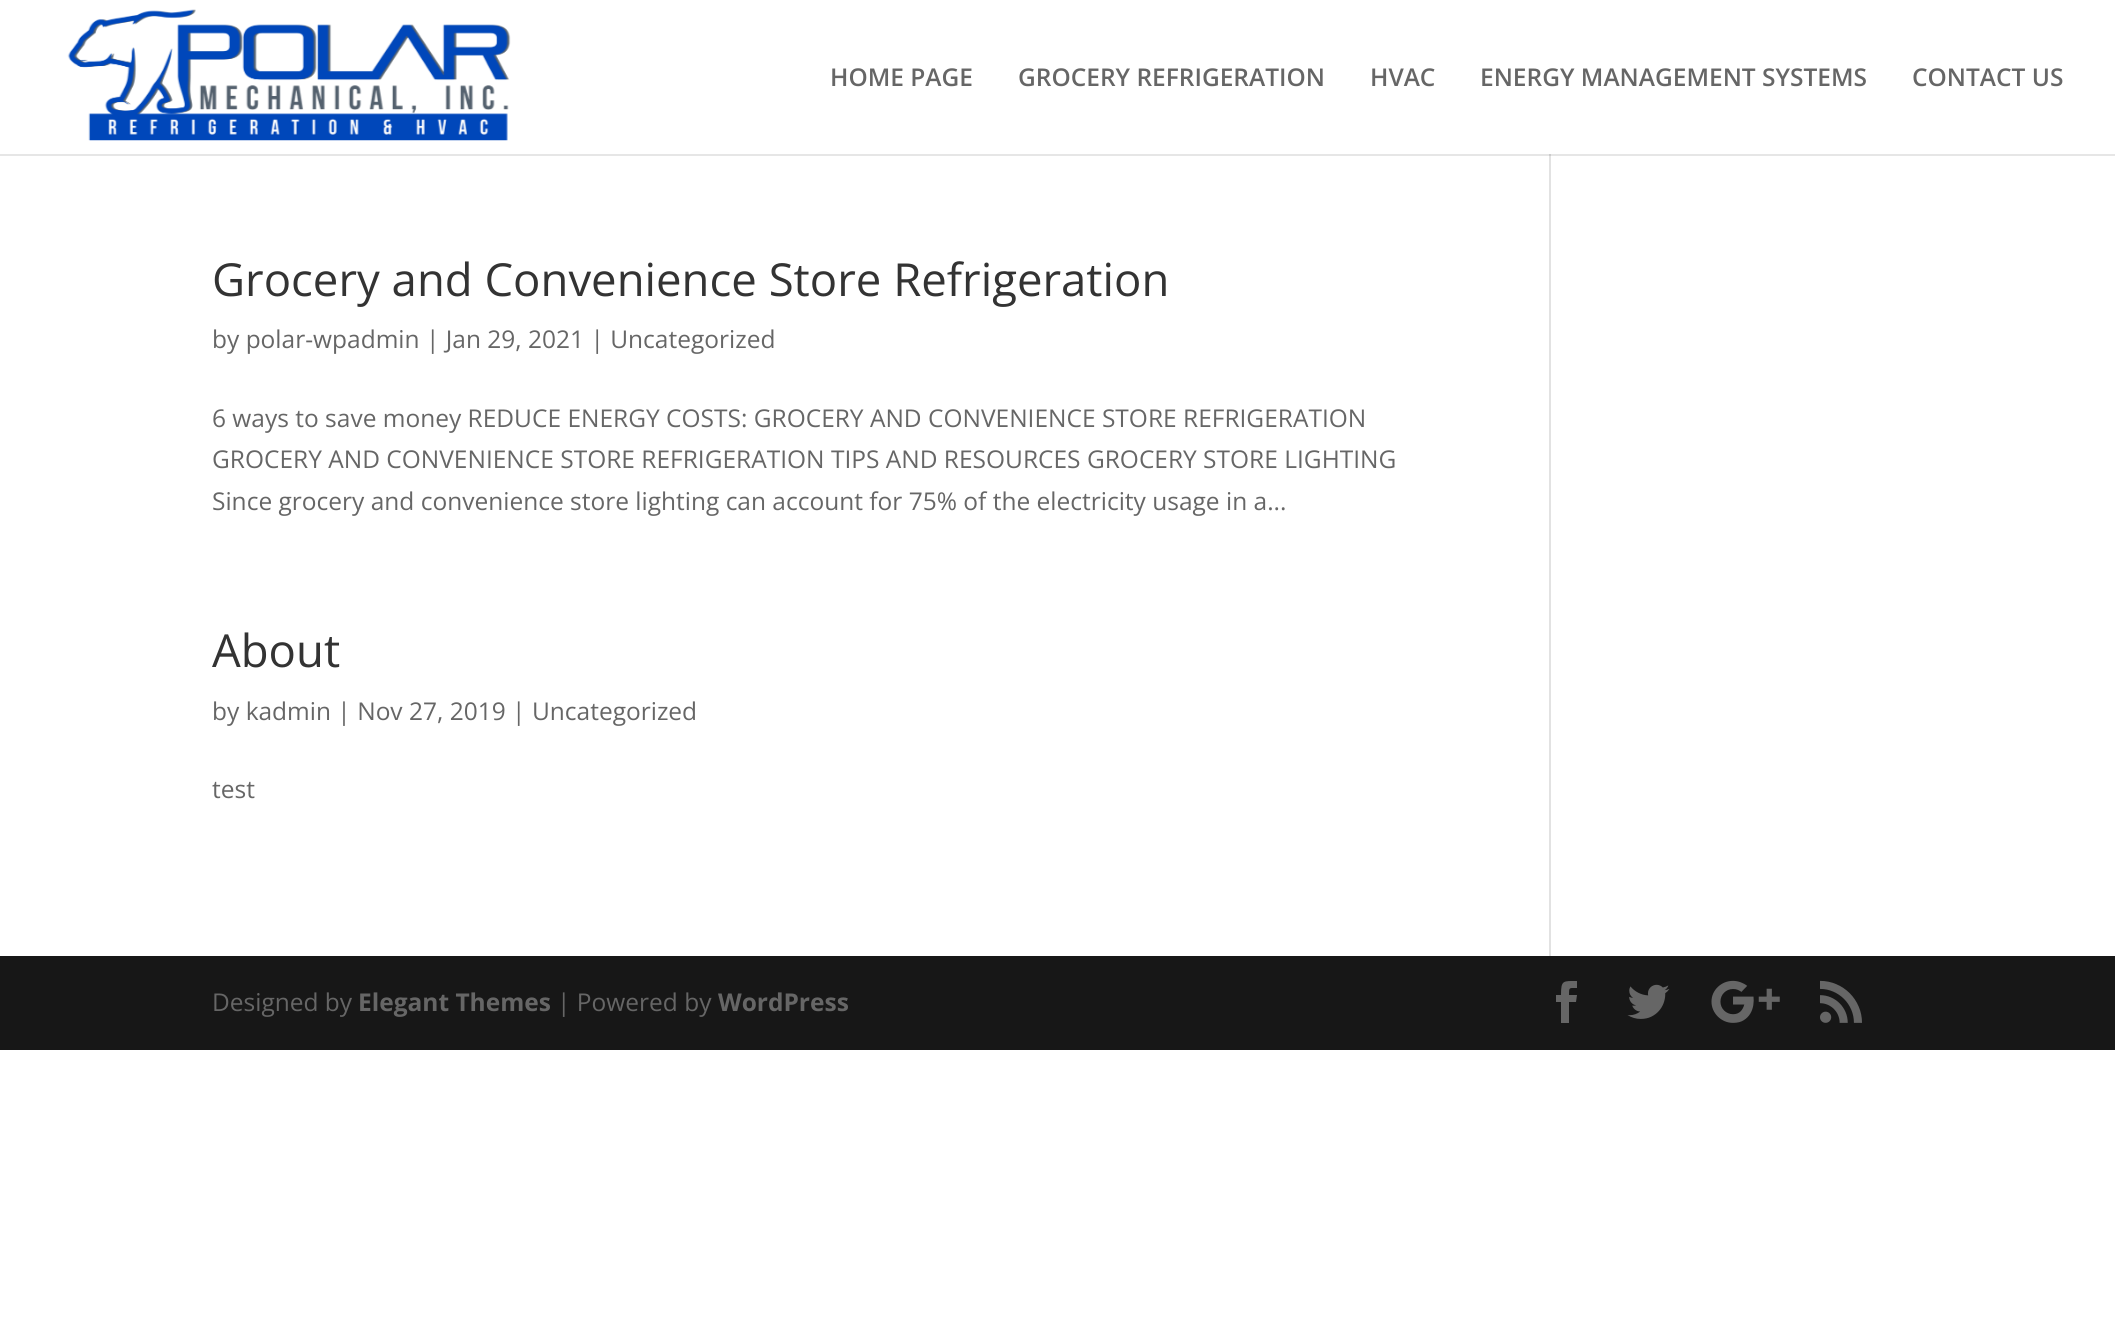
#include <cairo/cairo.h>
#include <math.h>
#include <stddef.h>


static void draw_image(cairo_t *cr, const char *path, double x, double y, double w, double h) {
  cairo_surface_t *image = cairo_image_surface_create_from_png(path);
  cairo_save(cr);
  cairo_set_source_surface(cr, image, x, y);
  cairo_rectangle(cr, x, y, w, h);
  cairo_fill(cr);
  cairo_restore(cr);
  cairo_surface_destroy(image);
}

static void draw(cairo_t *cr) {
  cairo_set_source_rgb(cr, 1, 1, 1);
  cairo_paint(cr);
  cairo_set_source_rgb(cr, 226 / 255.0, 226 / 255.0, 226 / 255.0);
  cairo_rectangle(cr, 1549, 154, 2, 802);
  cairo_fill(cr);
  cairo_set_source_rgba(cr, 0, 0, 0, 0.1);
  cairo_new_path(cr);
  cairo_move_to(cr, 0, 154);
  cairo_line_to(cr, 0, 156);
  cairo_line_to(cr, 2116, 156);
  cairo_line_to(cr, 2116, 2);
  cairo_line_to(cr, 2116, 154);
  cairo_close_path(cr);
  cairo_fill(cr);
  draw_image(cr, "images/1.png", 67, 9, 444, 132);
  cairo_set_source_rgb(cr, 23 / 255.0, 23 / 255.0, 23 / 255.0);
  cairo_rectangle(cr, 0, 956, 2115, 94);
  cairo_fill(cr);
  cairo_set_source_rgb(cr, 102 / 255.0, 102 / 255.0, 102 / 255.0);
  cairo_new_path(cr);
  cairo_move_to(cr, 1561, 1023);
  cairo_line_to(cr, 1569, 1023);
  cairo_line_to(cr, 1569, 1002);
  cairo_line_to(cr, 1576, 1002);
  cairo_line_to(cr, 1577, 995);
  cairo_line_to(cr, 1569, 995);
  cairo_curve_to(cr, 1569, 987, 1569, 988, 1577, 988);
  cairo_line_to(cr, 1577, 981);
  cairo_curve_to(cr, 1563, 981, 1561, 980, 1561, 995);
  cairo_line_to(cr, 1556, 995);
  cairo_line_to(cr, 1556, 1002);
  cairo_line_to(cr, 1561, 1002);
  cairo_close_path(cr);
  cairo_fill(cr);
  draw_image(cr, "images/2.png", 1627, 984, 43, 35);
  draw_image(cr, "images/3.png", 1711, 980, 69, 43);
  draw_image(cr, "images/4.png", 1820, 980, 42, 43);
  cairo_select_font_face(cr, "Open Sans SemiBold", CAIRO_FONT_SLANT_NORMAL, CAIRO_FONT_WEIGHT_NORMAL);
  cairo_set_font_size(cr, 24.5);
  cairo_move_to(cr, 830, 86);
  cairo_show_text(cr, "HOME PAGE");
  cairo_move_to(cr, 1018, 86);
  cairo_show_text(cr, "GROCERY REFRIGERATION");
  cairo_move_to(cr, 1370, 86);
  cairo_show_text(cr, "HVAC");
  cairo_move_to(cr, 1480, 86);
  cairo_show_text(cr, "ENERGY MANAGEMENT SYSTEMS");
  cairo_move_to(cr, 1912, 86);
  cairo_show_text(cr, "CONTACT US");
  cairo_select_font_face(cr, "Open Sans", CAIRO_FONT_SLANT_NORMAL, CAIRO_FONT_WEIGHT_NORMAL);
  cairo_set_font_size(cr, 45.5);
  cairo_set_source_rgb(cr, 51 / 255.0, 51 / 255.0, 51 / 255.0);
  cairo_move_to(cr, 212, 296);
  cairo_show_text(cr, "Grocery and Convenience Store Refrigeration");
  cairo_set_font_size(cr, 24.5);
  cairo_set_source_rgb(cr, 102 / 255.0, 102 / 255.0, 102 / 255.0);
  cairo_move_to(cr, 212, 348);
  cairo_show_text(cr, "by polar-wpadmin | Jan 29, 2021 | Uncategorized");
  cairo_move_to(cr, 212, 427);
  cairo_show_text(cr, "6 ways to save money REDUCE ENERGY COSTS: GROCERY AND CONVENIENCE STORE REFRIGERATION");
  cairo_move_to(cr, 212, 468);
  cairo_show_text(cr, "GROCERY AND CONVENIENCE STORE REFRIGERATION TIPS AND RESOURCES GROCERY STORE LIGHTING");
  cairo_move_to(cr, 212, 510);
  cairo_show_text(cr, "Since grocery and convenience store lighting can account for 75% of the electricity usage in a...");
  cairo_set_font_size(cr, 45.5);
  cairo_set_source_rgb(cr, 51 / 255.0, 51 / 255.0, 51 / 255.0);
  cairo_move_to(cr, 212, 667);
  cairo_show_text(cr, "About");
  cairo_set_font_size(cr, 24.5);
  cairo_set_source_rgb(cr, 102 / 255.0, 102 / 255.0, 102 / 255.0);
  cairo_move_to(cr, 212, 720);
  cairo_show_text(cr, "by kadmin | Nov 27, 2019 | Uncategorized");
  cairo_move_to(cr, 212, 798);
  cairo_show_text(cr, "test");
  cairo_move_to(cr, 212, 1011);
  cairo_show_text(cr, "Designed by");
  cairo_select_font_face(cr, "Open Sans", CAIRO_FONT_SLANT_NORMAL, CAIRO_FONT_WEIGHT_BOLD);
  cairo_move_to(cr, 358, 1011);
  cairo_show_text(cr, "Elegant Themes");
  cairo_select_font_face(cr, "Open Sans", CAIRO_FONT_SLANT_NORMAL, CAIRO_FONT_WEIGHT_NORMAL);
  cairo_move_to(cr, 557, 1011);
  cairo_show_text(cr, "| Powered by");
  cairo_select_font_face(cr, "Open Sans", CAIRO_FONT_SLANT_NORMAL, CAIRO_FONT_WEIGHT_BOLD);
  cairo_move_to(cr, 718, 1011);
  cairo_show_text(cr, "WordPress");
}

int main(void) {
  cairo_surface_t *surface = cairo_image_surface_create(CAIRO_FORMAT_RGB24, 2115, 1340);
  cairo_t *cr = cairo_create(surface);
  cairo_font_options_t *options = cairo_font_options_create();
  cairo_font_options_set_hint_metrics(options, CAIRO_HINT_METRICS_OFF);
  cairo_font_options_set_hint_style(options, CAIRO_HINT_STYLE_NONE);
  cairo_set_font_options(cr, options);
  cairo_set_miter_limit(cr, 4);
  draw(cr);
  cairo_surface_write_to_png(surface, "out.png");
  cairo_font_options_destroy(options);
  cairo_destroy(cr);
  cairo_surface_destroy(surface);
  return 0;
}
